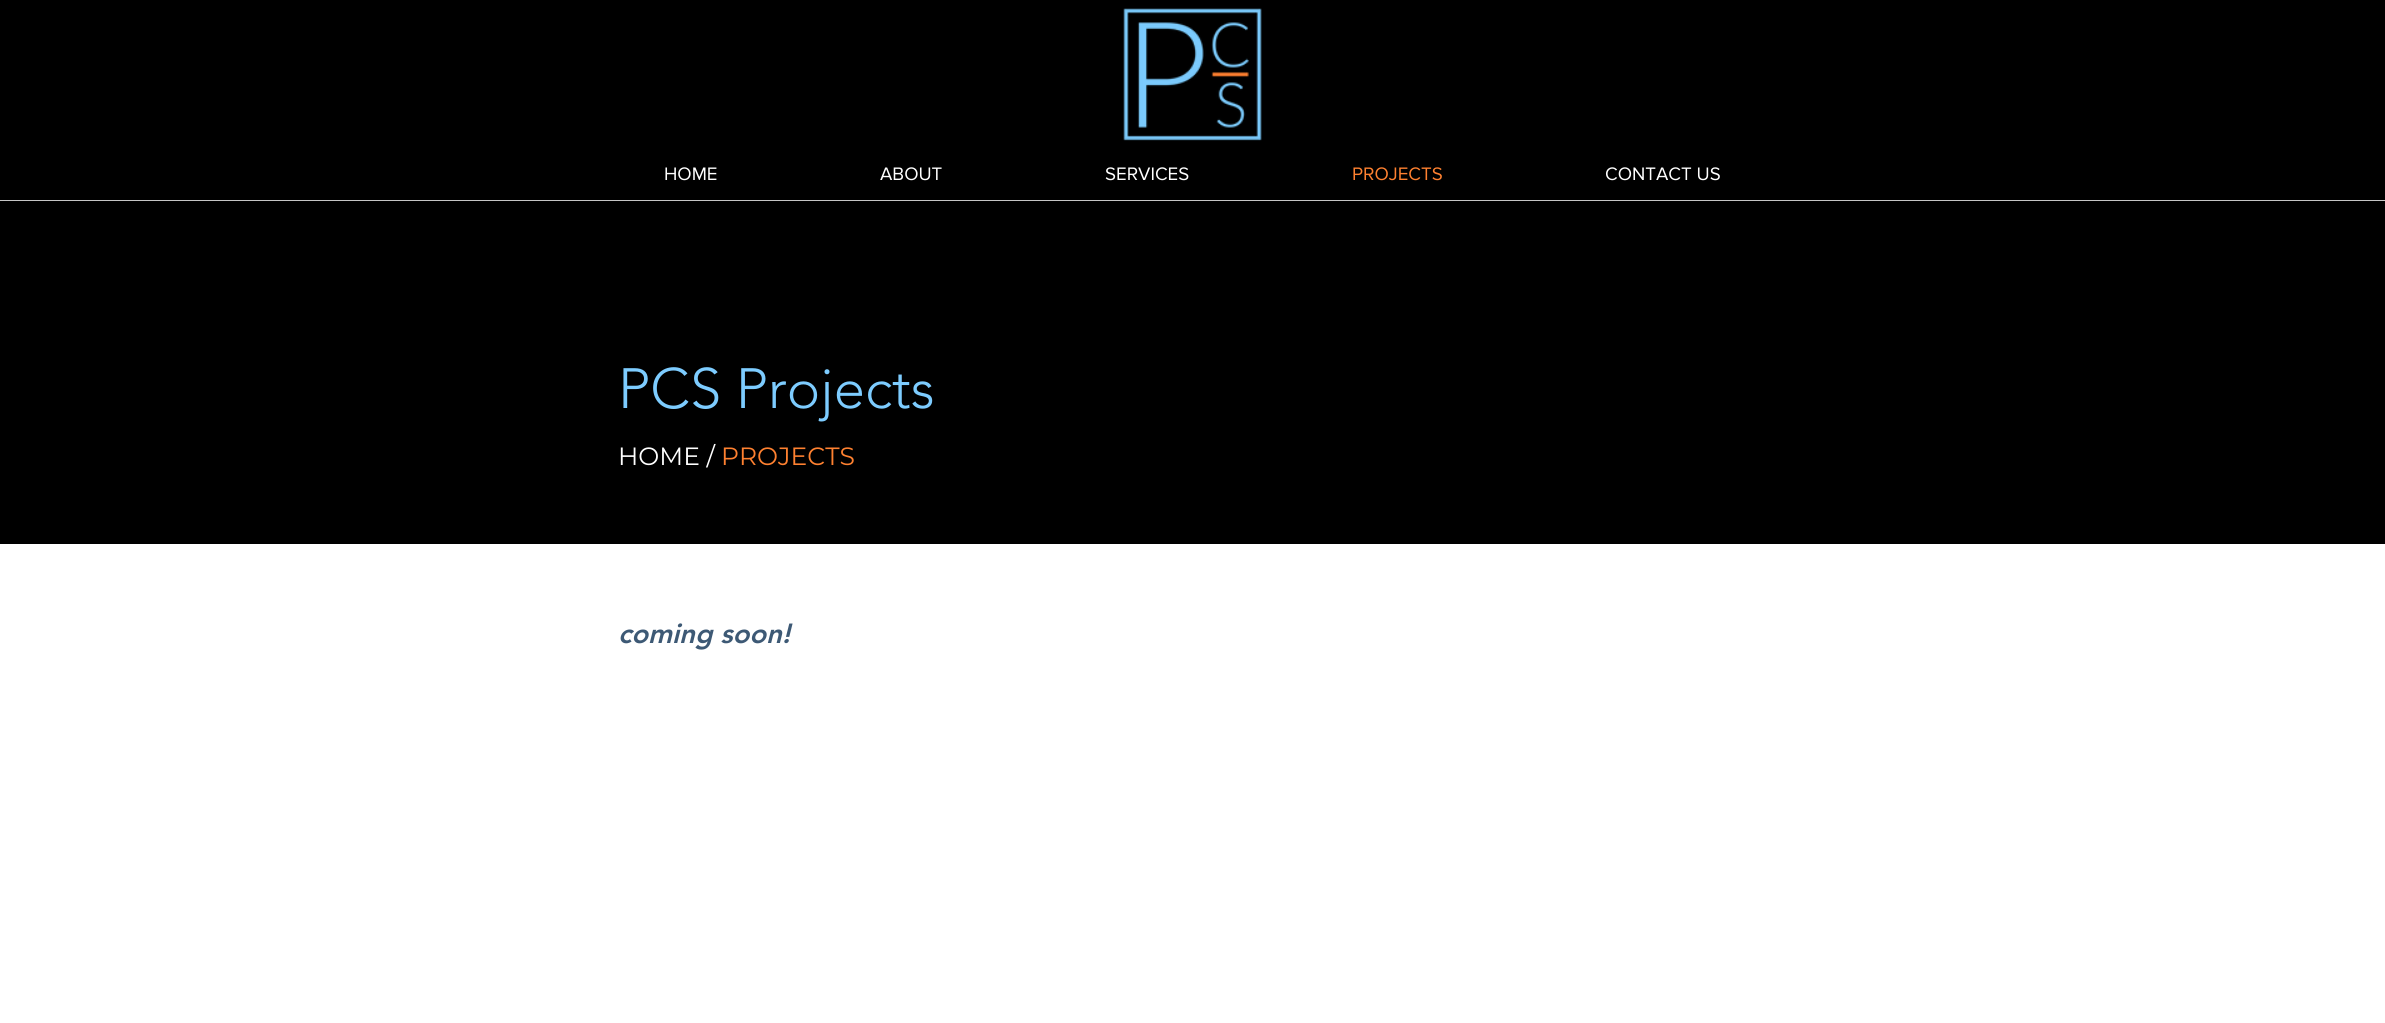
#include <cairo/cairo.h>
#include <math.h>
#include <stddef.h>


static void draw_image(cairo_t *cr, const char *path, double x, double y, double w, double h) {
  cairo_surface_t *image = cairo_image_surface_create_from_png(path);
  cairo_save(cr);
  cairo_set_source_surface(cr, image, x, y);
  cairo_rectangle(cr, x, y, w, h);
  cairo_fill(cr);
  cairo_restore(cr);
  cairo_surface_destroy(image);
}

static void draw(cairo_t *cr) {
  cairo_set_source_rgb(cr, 1, 1, 1);
  cairo_paint(cr);
  cairo_set_source_rgb(cr, 0, 0, 0);
  cairo_rectangle(cr, 0, 0, 2385, 544);
  cairo_fill(cr);
  draw_image(cr, "images/1.png", 1123, 8, 139, 133);
  cairo_set_source_rgb(cr, 198 / 255.0, 198 / 255.0, 198 / 255.0);
  cairo_rectangle(cr, 0, 200, 2385, 1);
  cairo_fill(cr);
  cairo_select_font_face(cr, "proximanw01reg", CAIRO_FONT_SLANT_NORMAL, CAIRO_FONT_WEIGHT_NORMAL);
  cairo_set_font_size(cr, 18.75);
  cairo_set_source_rgb(cr, 1, 1, 1);
  cairo_move_to(cr, 664, 180);
  cairo_show_text(cr, "HOME");
  cairo_move_to(cr, 880, 180);
  cairo_show_text(cr, "ABOUT");
  cairo_move_to(cr, 1105, 180);
  cairo_show_text(cr, "SERVICES");
  cairo_set_source_rgb(cr, 1, 129 / 255.0, 48 / 255.0);
  cairo_move_to(cr, 1352, 180);
  cairo_show_text(cr, "PROJECTS");
  cairo_set_source_rgb(cr, 1, 1, 1);
  cairo_move_to(cr, 1605, 180);
  cairo_show_text(cr, "CONTACT US");
  cairo_select_font_face(cr, "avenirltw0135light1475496 Light", CAIRO_FONT_SLANT_NORMAL, CAIRO_FONT_WEIGHT_NORMAL);
  cairo_set_font_size(cr, 56.25);
  cairo_set_source_rgb(cr, 125 / 255.0, 204 / 255.0, 1);
  cairo_move_to(cr, 618, 408);
  cairo_show_text(cr, "PCS Projects");
  cairo_select_font_face(cr, "Montserrat", CAIRO_FONT_SLANT_NORMAL, CAIRO_FONT_WEIGHT_NORMAL);
  cairo_set_font_size(cr, 25);
  cairo_set_source_rgb(cr, 1, 1, 1);
  cairo_move_to(cr, 618, 465);
  cairo_show_text(cr, "HOME /");
  cairo_set_source_rgb(cr, 1, 129 / 255.0, 48 / 255.0);
  cairo_move_to(cr, 721, 465);
  cairo_show_text(cr, "PROJECTS");
  cairo_select_font_face(cr, "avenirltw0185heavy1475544 Black", CAIRO_FONT_SLANT_ITALIC, CAIRO_FONT_WEIGHT_NORMAL);
  cairo_set_font_size(cr, 27.5);
  cairo_set_source_rgb(cr, 61 / 255.0, 89 / 255.0, 117 / 255.0);
  cairo_move_to(cr, 618, 643);
  cairo_show_text(cr, "coming soon!");
}

int main(void) {
  cairo_surface_t *surface = cairo_image_surface_create(CAIRO_FORMAT_RGB24, 2385, 1023);
  cairo_t *cr = cairo_create(surface);
  cairo_font_options_t *options = cairo_font_options_create();
  cairo_font_options_set_hint_metrics(options, CAIRO_HINT_METRICS_OFF);
  cairo_font_options_set_hint_style(options, CAIRO_HINT_STYLE_NONE);
  cairo_set_font_options(cr, options);
  cairo_set_miter_limit(cr, 4);
  draw(cr);
  cairo_surface_write_to_png(surface, "out.png");
  cairo_font_options_destroy(options);
  cairo_destroy(cr);
  cairo_surface_destroy(surface);
  return 0;
}
